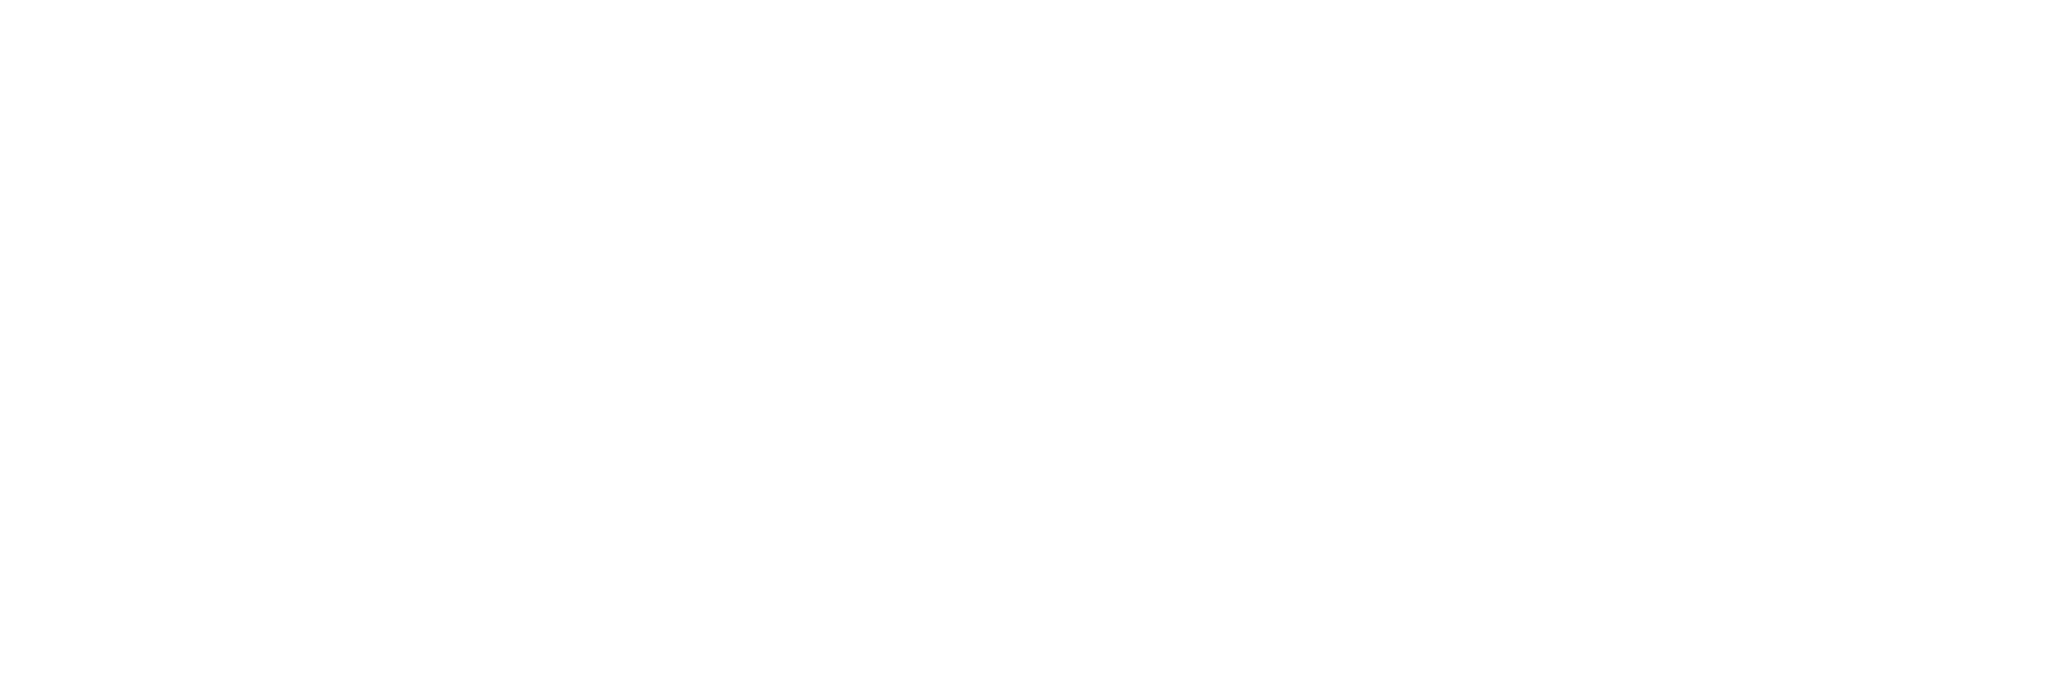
#include <cairo/cairo.h>
#include <math.h>
#include <stddef.h>


static void draw_image(cairo_t *cr, const char *path, double x, double y, double w, double h) {
  cairo_surface_t *image = cairo_image_surface_create_from_png(path);
  cairo_save(cr);
  cairo_set_source_surface(cr, image, x, y);
  cairo_rectangle(cr, x, y, w, h);
  cairo_fill(cr);
  cairo_restore(cr);
  cairo_surface_destroy(image);
}

static void draw(cairo_t *cr) {
  cairo_set_source_rgb(cr, 1, 1, 1);
  cairo_paint(cr);
  draw_image(cr, "images/1.png", 955, 405, 32, 33);
  draw_image(cr, "images/2.png", 1012, 405, 33, 33);
  draw_image(cr, "images/3.png", 1070, 405, 32, 33);
  draw_image(cr, "images/4.png", 1127, 405, 33, 33);
}

int main(void) {
  cairo_surface_t *surface = cairo_image_surface_create(CAIRO_FORMAT_RGB24, 2062, 688);
  cairo_t *cr = cairo_create(surface);
  cairo_font_options_t *options = cairo_font_options_create();
  cairo_font_options_set_hint_metrics(options, CAIRO_HINT_METRICS_OFF);
  cairo_font_options_set_hint_style(options, CAIRO_HINT_STYLE_NONE);
  cairo_set_font_options(cr, options);
  cairo_set_miter_limit(cr, 4);
  draw(cr);
  cairo_surface_write_to_png(surface, "out.png");
  cairo_font_options_destroy(options);
  cairo_destroy(cr);
  cairo_surface_destroy(surface);
  return 0;
}
